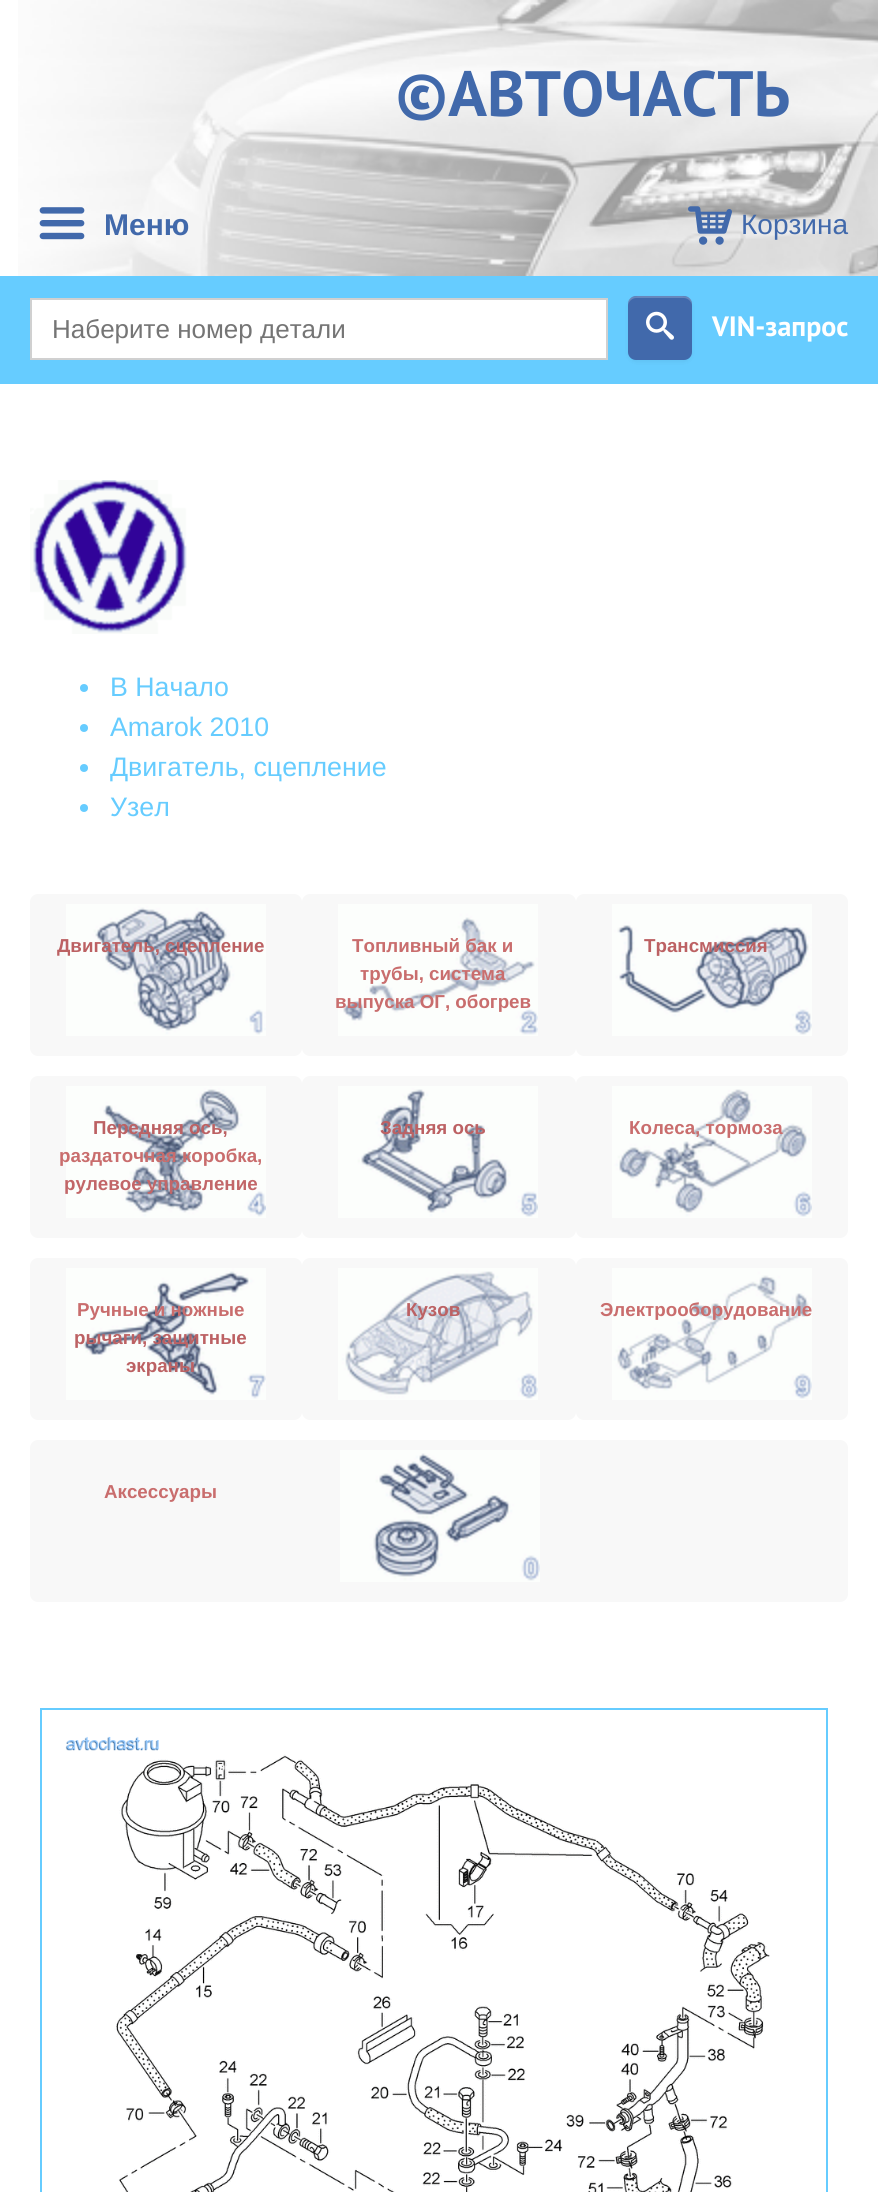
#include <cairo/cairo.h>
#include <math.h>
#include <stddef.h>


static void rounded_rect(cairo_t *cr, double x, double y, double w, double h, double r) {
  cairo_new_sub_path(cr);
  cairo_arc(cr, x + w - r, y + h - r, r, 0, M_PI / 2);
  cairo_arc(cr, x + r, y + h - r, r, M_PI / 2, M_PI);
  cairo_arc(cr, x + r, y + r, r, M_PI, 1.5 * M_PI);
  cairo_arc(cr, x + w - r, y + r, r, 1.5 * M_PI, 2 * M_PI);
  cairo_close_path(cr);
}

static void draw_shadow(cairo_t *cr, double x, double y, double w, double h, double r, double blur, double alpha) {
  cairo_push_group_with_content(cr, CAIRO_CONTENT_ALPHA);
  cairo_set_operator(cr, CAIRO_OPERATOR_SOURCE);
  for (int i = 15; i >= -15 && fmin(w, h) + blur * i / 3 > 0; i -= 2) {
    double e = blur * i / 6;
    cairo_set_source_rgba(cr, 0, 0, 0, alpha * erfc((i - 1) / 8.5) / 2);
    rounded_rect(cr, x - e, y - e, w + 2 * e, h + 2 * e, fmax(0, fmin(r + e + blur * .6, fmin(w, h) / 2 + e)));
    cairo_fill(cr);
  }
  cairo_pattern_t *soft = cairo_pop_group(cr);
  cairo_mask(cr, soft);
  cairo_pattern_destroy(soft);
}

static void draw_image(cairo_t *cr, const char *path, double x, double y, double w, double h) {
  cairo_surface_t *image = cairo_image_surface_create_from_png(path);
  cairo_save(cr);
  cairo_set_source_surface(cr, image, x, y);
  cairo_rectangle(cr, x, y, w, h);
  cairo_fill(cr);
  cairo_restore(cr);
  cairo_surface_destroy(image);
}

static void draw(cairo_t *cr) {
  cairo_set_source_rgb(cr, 1, 1, 1);
  cairo_paint(cr);
  draw_image(cr, "images/1.png", 18, 0, 860, 276);
  draw_image(cr, "images/2.png", 39, 207, 46, 33);
  draw_image(cr, "images/3.png", 688, 206, 44, 39);
  cairo_set_source_rgb(cr, 102 / 255.0, 204 / 255.0, 1);
  cairo_rectangle(cr, 0, 276, 878, 108);
  cairo_fill(cr);
  cairo_set_source_rgb(cr, 1, 1, 1);
  cairo_rectangle(cr, 31, 299, 576, 60);
  cairo_fill_preserve(cr);
  cairo_set_source_rgb(cr, 208 / 255.0, 208 / 255.0, 208 / 255.0);
  cairo_stroke(cr);
  cairo_set_source_rgb(cr, 0, 0, 0);
  draw_shadow(cr, 628, 298, 64, 64, 8, 2, 0.05);
  cairo_set_source_rgb(cr, 65 / 255.0, 105 / 255.0, 171 / 255.0);
  rounded_rect(cr, 628, 296, 64, 64, 8);
  cairo_fill(cr);
  cairo_set_source_rgba(cr, 1, 1, 1, 0.2);
  cairo_new_path(cr);
  cairo_move_to(cr, 636, 298);
  cairo_line_to(cr, 684, 298);
  cairo_curve_to(cr, 688, 298, 692, 302, 692, 306);
  cairo_curve_to(cr, 692, 295, 685, 296, 676, 296);
  cairo_line_to(cr, 644, 296);
  cairo_curve_to(cr, 635, 296, 628, 295, 628, 306);
  cairo_curve_to(cr, 628, 302, 632, 298, 636, 298);
  cairo_close_path(cr);
  cairo_fill(cr);
  draw_image(cr, "images/4.png", 646, 311, 28, 29);
  draw_image(cr, "images/5.png", 30, 480, 157, 154);
  cairo_set_source_rgb(cr, 102 / 255.0, 204 / 255.0, 1);
  cairo_arc(cr, 84, 688, 4, 0, 2 * M_PI);
  cairo_fill(cr);
  cairo_arc(cr, 84, 728, 4, 0, 2 * M_PI);
  cairo_fill(cr);
  cairo_arc(cr, 84, 768, 4, 0, 2 * M_PI);
  cairo_fill(cr);
  cairo_arc(cr, 84, 808, 4, 0, 2 * M_PI);
  cairo_fill(cr);
  cairo_set_source_rgb(cr, 248 / 255.0, 248 / 255.0, 248 / 255.0);
  rounded_rect(cr, 30, 894, 272, 162, 8);
  cairo_fill(cr);
  draw_image(cr, "images/6.png", 66, 904, 200, 132);
  rounded_rect(cr, 302, 894, 274, 162, 8);
  cairo_fill(cr);
  draw_image(cr, "images/7.png", 338, 904, 200, 132);
  rounded_rect(cr, 576, 894, 272, 162, 8);
  cairo_fill(cr);
  draw_image(cr, "images/8.png", 612, 904, 200, 132);
  rounded_rect(cr, 30, 1076, 272, 162, 8);
  cairo_fill(cr);
  draw_image(cr, "images/9.png", 66, 1086, 200, 132);
  rounded_rect(cr, 302, 1076, 274, 162, 8);
  cairo_fill(cr);
  draw_image(cr, "images/10.png", 338, 1086, 200, 132);
  rounded_rect(cr, 576, 1076, 272, 162, 8);
  cairo_fill(cr);
  draw_image(cr, "images/11.png", 612, 1086, 200, 132);
  rounded_rect(cr, 30, 1258, 272, 162, 8);
  cairo_fill(cr);
  draw_image(cr, "images/12.png", 66, 1268, 200, 132);
  rounded_rect(cr, 302, 1258, 274, 162, 8);
  cairo_fill(cr);
  draw_image(cr, "images/13.png", 338, 1268, 200, 132);
  rounded_rect(cr, 576, 1258, 272, 162, 8);
  cairo_fill(cr);
  draw_image(cr, "images/14.png", 612, 1268, 200, 132);
  rounded_rect(cr, 30, 1440, 818, 162, 8);
  cairo_fill(cr);
  draw_image(cr, "images/15.png", 340, 1450, 200, 132);
  cairo_rectangle(cr, 41, 1709, 786, 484);
  cairo_set_source_rgb(cr, 102 / 255.0, 204 / 255.0, 1);
  cairo_stroke(cr);
  draw_image(cr, "images/16.png", 65, 1736, 705, 456);
  cairo_select_font_face(cr, "PT Sans", CAIRO_FONT_SLANT_NORMAL, CAIRO_FONT_WEIGHT_BOLD);
  cairo_set_font_size(cr, 64);
  cairo_set_source_rgb(cr, 65 / 255.0, 105 / 255.0, 171 / 255.0);
  cairo_move_to(cr, 395, 116);
  cairo_show_text(cr, "©АВТОЧАСТЬ");
  cairo_select_font_face(cr, "Liberation Sans", CAIRO_FONT_SLANT_NORMAL, CAIRO_FONT_WEIGHT_BOLD);
  cairo_set_font_size(cr, 30);
  cairo_move_to(cr, 104, 235);
  cairo_show_text(cr, "Меню");
  cairo_select_font_face(cr, "Liberation Sans", CAIRO_FONT_SLANT_NORMAL, CAIRO_FONT_WEIGHT_NORMAL);
  cairo_set_font_size(cr, 28);
  cairo_move_to(cr, 741, 234);
  cairo_show_text(cr, "Корзина");
  cairo_set_font_size(cr, 26);
  cairo_set_source_rgb(cr, 117 / 255.0, 117 / 255.0, 117 / 255.0);
  cairo_move_to(cr, 52, 338);
  cairo_show_text(cr, "Наберите номер детали");
  cairo_select_font_face(cr, "PT Sans", CAIRO_FONT_SLANT_NORMAL, CAIRO_FONT_WEIGHT_BOLD);
  cairo_set_font_size(cr, 28);
  cairo_set_source_rgb(cr, 1, 1, 1);
  cairo_move_to(cr, 712, 336);
  cairo_show_text(cr, "VIN-запрос");
  cairo_select_font_face(cr, "Liberation Sans", CAIRO_FONT_SLANT_NORMAL, CAIRO_FONT_WEIGHT_NORMAL);
  cairo_set_font_size(cr, 26.75);
  cairo_set_source_rgb(cr, 102 / 255.0, 204 / 255.0, 1);
  cairo_move_to(cr, 110, 696);
  cairo_show_text(cr, "В Начало");
  cairo_move_to(cr, 110, 736);
  cairo_show_text(cr, "Amarok 2010");
  cairo_move_to(cr, 110, 776);
  cairo_show_text(cr, "Двигатель, сцепление");
  cairo_move_to(cr, 110, 816);
  cairo_show_text(cr, "Узел");
  cairo_select_font_face(cr, "Liberation Sans", CAIRO_FONT_SLANT_NORMAL, CAIRO_FONT_WEIGHT_BOLD);
  cairo_set_font_size(cr, 18.75);
  cairo_set_source_rgb(cr, 188 / 255.0, 97 / 255.0, 99 / 255.0);
  cairo_move_to(cr, 57, 952);
  cairo_show_text(cr, "Двигатель, сцепление");
  cairo_set_source_rgb(cr, 201 / 255.0, 109 / 255.0, 109 / 255.0);
  cairo_move_to(cr, 352, 952);
  cairo_show_text(cr, "Топливный бак и");
  cairo_move_to(cr, 360, 980);
  cairo_show_text(cr, "трубы, система");
  cairo_move_to(cr, 335, 1008);
  cairo_show_text(cr, "выпуска ОГ, обогрев");
  cairo_set_source_rgb(cr, 188 / 255.0, 97 / 255.0, 99 / 255.0);
  cairo_move_to(cr, 644, 952);
  cairo_show_text(cr, "Трансмиссия");
  cairo_move_to(cr, 93, 1134);
  cairo_show_text(cr, "Передняя ось,");
  cairo_set_source_rgb(cr, 201 / 255.0, 109 / 255.0, 109 / 255.0);
  cairo_move_to(cr, 59, 1162);
  cairo_show_text(cr, "раздаточная коробка,");
  cairo_set_source_rgb(cr, 194 / 255.0, 102 / 255.0, 104 / 255.0);
  cairo_move_to(cr, 64, 1190);
  cairo_show_text(cr, "рулевое управление");
  cairo_set_source_rgb(cr, 188 / 255.0, 97 / 255.0, 99 / 255.0);
  cairo_move_to(cr, 380, 1134);
  cairo_show_text(cr, "Задняя ось");
  cairo_set_source_rgb(cr, 201 / 255.0, 109 / 255.0, 109 / 255.0);
  cairo_move_to(cr, 629, 1134);
  cairo_show_text(cr, "Колеса, тормоза");
  cairo_move_to(cr, 77, 1316);
  cairo_show_text(cr, "Ручные и ножные");
  cairo_set_source_rgb(cr, 188 / 255.0, 97 / 255.0, 99 / 255.0);
  cairo_move_to(cr, 74, 1344);
  cairo_show_text(cr, "рычаги, защитные");
  cairo_move_to(cr, 126, 1372);
  cairo_show_text(cr, "экраны");
  cairo_move_to(cr, 406, 1316);
  cairo_show_text(cr, "Кузов");
  cairo_set_source_rgb(cr, 201 / 255.0, 109 / 255.0, 109 / 255.0);
  cairo_move_to(cr, 600, 1316);
  cairo_show_text(cr, "Электрооборудование");
  cairo_move_to(cr, 104, 1498);
  cairo_show_text(cr, "Аксессуары");
}

int main(void) {
  cairo_surface_t *surface = cairo_image_surface_create(CAIRO_FORMAT_RGB24, 878, 2192);
  cairo_t *cr = cairo_create(surface);
  cairo_font_options_t *options = cairo_font_options_create();
  cairo_font_options_set_hint_metrics(options, CAIRO_HINT_METRICS_OFF);
  cairo_font_options_set_hint_style(options, CAIRO_HINT_STYLE_NONE);
  cairo_set_font_options(cr, options);
  cairo_set_miter_limit(cr, 4);
  draw(cr);
  cairo_surface_write_to_png(surface, "out.png");
  cairo_font_options_destroy(options);
  cairo_destroy(cr);
  cairo_surface_destroy(surface);
  return 0;
}
